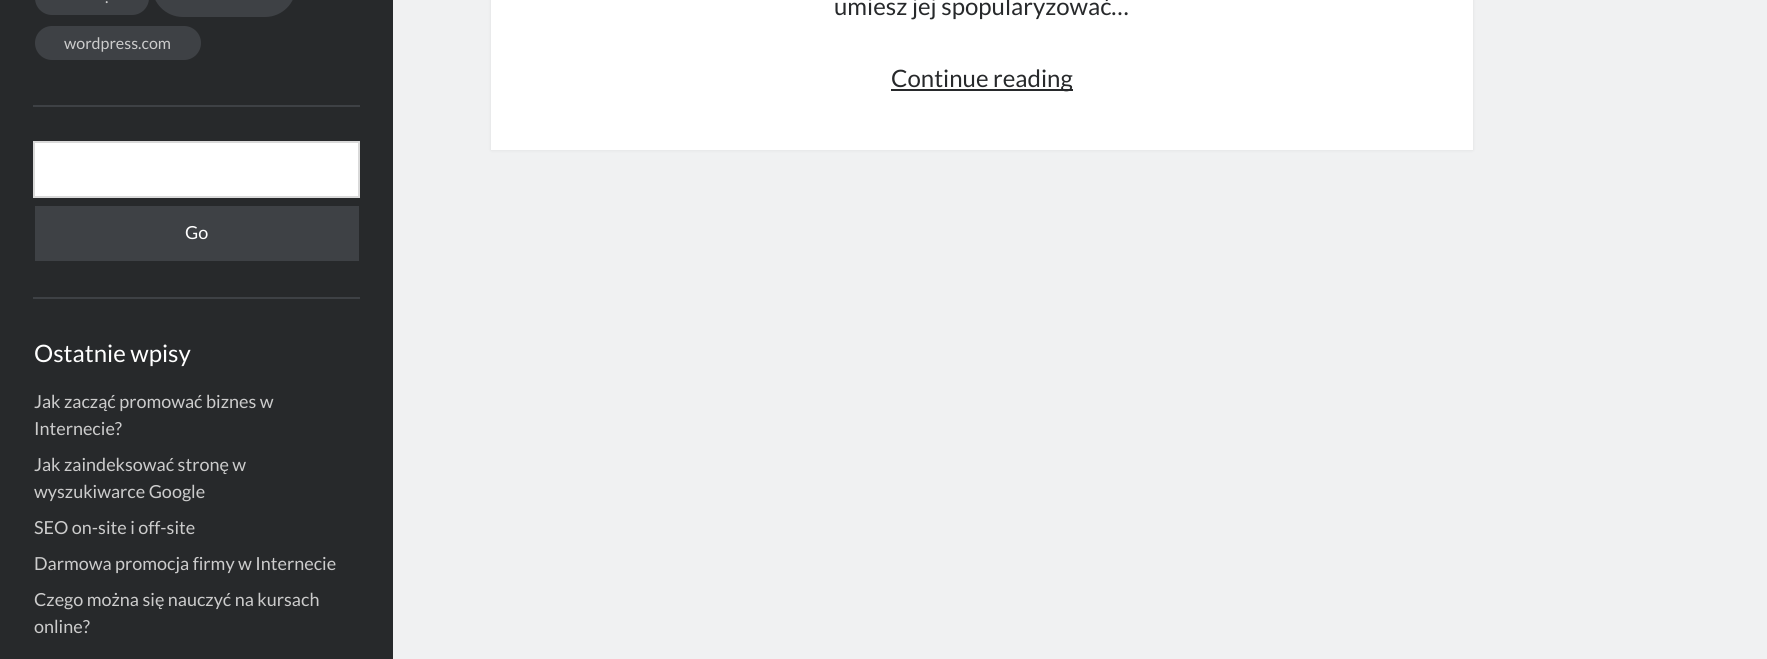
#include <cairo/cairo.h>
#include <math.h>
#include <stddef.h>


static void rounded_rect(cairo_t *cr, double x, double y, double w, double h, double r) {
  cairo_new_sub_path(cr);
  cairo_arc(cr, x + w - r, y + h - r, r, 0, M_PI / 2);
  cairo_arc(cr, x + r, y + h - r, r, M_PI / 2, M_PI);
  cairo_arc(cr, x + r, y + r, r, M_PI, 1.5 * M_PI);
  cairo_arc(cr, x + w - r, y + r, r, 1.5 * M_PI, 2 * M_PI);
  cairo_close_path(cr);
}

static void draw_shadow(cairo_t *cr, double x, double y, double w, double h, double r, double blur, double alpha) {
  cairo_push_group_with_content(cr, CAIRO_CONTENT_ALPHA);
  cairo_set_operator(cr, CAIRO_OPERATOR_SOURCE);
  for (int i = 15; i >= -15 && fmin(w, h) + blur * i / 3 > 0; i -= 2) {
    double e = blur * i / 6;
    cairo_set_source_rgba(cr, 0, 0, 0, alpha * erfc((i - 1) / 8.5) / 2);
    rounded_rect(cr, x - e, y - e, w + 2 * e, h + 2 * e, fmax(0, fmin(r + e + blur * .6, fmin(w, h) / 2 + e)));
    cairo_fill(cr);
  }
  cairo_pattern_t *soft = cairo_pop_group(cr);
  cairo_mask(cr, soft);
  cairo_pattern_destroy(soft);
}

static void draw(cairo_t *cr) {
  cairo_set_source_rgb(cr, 39 / 255.0, 41 / 255.0, 43 / 255.0);
  cairo_paint(cr);
  cairo_set_source_rgb(cr, 62 / 255.0, 65 / 255.0, 69 / 255.0);
  rounded_rect(cr, 35, -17, 114, 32, 17);
  cairo_fill(cr);
  rounded_rect(cr, 152, -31, 144, 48, 31);
  cairo_fill(cr);
  rounded_rect(cr, 35, 26, 166, 34, 17);
  cairo_fill(cr);
  cairo_rectangle(cr, 33, 105, 327, 2);
  cairo_fill(cr);
  cairo_set_source_rgb(cr, 1, 1, 1);
  cairo_rectangle(cr, 34, 142, 325, 55);
  cairo_fill_preserve(cr);
  cairo_set_source_rgb(cr, 217 / 255.0, 217 / 255.0, 217 / 255.0);
  cairo_stroke(cr);
  cairo_set_source_rgb(cr, 62 / 255.0, 65 / 255.0, 69 / 255.0);
  cairo_rectangle(cr, 35, 206, 324, 55);
  cairo_fill(cr);
  cairo_rectangle(cr, 33, 297, 327, 2);
  cairo_fill(cr);
  cairo_set_source_rgb(cr, 240 / 255.0, 241 / 255.0, 242 / 255.0);
  cairo_rectangle(cr, 393, 0, 1374, 659);
  cairo_fill(cr);
  cairo_set_source_rgb(cr, 39 / 255.0, 43 / 255.0, 47 / 255.0);
  draw_shadow(cr, 491, -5, 982, 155, 0, 1.5, 0.1);
  cairo_set_source_rgb(cr, 1, 1, 1);
  cairo_rectangle(cr, 491, 0, 982, 150);
  cairo_fill(cr);
  cairo_set_source_rgb(cr, 39 / 255.0, 41 / 255.0, 43 / 255.0);
  cairo_rectangle(cr, 891, 89, 182, 2);
  cairo_fill(cr);
  cairo_select_font_face(cr, "Lato", CAIRO_FONT_SLANT_NORMAL, CAIRO_FONT_WEIGHT_NORMAL);
  cairo_set_font_size(cr, 16);
  cairo_set_source_rgb(cr, 204 / 255.0, 204 / 255.0, 204 / 255.0);
  cairo_move_to(cr, 105, 3);
  cairo_show_text(cr, ".");
  cairo_move_to(cr, 64, 49);
  cairo_show_text(cr, "wordpress.com");
  cairo_set_font_size(cr, 18);
  cairo_set_source_rgb(cr, 1, 1, 1);
  cairo_move_to(cr, 185, 239);
  cairo_show_text(cr, "Go");
  cairo_set_font_size(cr, 24);
  cairo_move_to(cr, 34, 362);
  cairo_show_text(cr, "Ostatnie wpisy");
  cairo_set_font_size(cr, 18);
  cairo_set_source_rgb(cr, 204 / 255.0, 204 / 255.0, 204 / 255.0);
  cairo_move_to(cr, 34, 408);
  cairo_show_text(cr, "Jak zacząć promować biznes w");
  cairo_move_to(cr, 34, 435);
  cairo_show_text(cr, "Internecie?");
  cairo_move_to(cr, 34, 471);
  cairo_show_text(cr, "Jak zaindeksować stronę w");
  cairo_move_to(cr, 34, 498);
  cairo_show_text(cr, "wyszukiwarce Google");
  cairo_move_to(cr, 34, 534);
  cairo_show_text(cr, "SEO on-site i off-site");
  cairo_move_to(cr, 34, 570);
  cairo_show_text(cr, "Darmowa promocja firmy w Internecie");
  cairo_move_to(cr, 34, 606);
  cairo_show_text(cr, "Czego można się nauczyć na kursach");
  cairo_move_to(cr, 34, 633);
  cairo_show_text(cr, "online?");
  cairo_set_font_size(cr, 24);
  cairo_set_source_rgb(cr, 39 / 255.0, 41 / 255.0, 43 / 255.0);
  cairo_move_to(cr, 834, 15);
  cairo_show_text(cr, "umiesz jej spopularyzować…");
  cairo_move_to(cr, 891, 87);
  cairo_show_text(cr, "Continue reading");
}

int main(void) {
  cairo_surface_t *surface = cairo_image_surface_create(CAIRO_FORMAT_RGB24, 1767, 659);
  cairo_t *cr = cairo_create(surface);
  cairo_font_options_t *options = cairo_font_options_create();
  cairo_font_options_set_hint_metrics(options, CAIRO_HINT_METRICS_OFF);
  cairo_font_options_set_hint_style(options, CAIRO_HINT_STYLE_NONE);
  cairo_set_font_options(cr, options);
  cairo_set_miter_limit(cr, 4);
  draw(cr);
  cairo_surface_write_to_png(surface, "out.png");
  cairo_font_options_destroy(options);
  cairo_destroy(cr);
  cairo_surface_destroy(surface);
  return 0;
}
